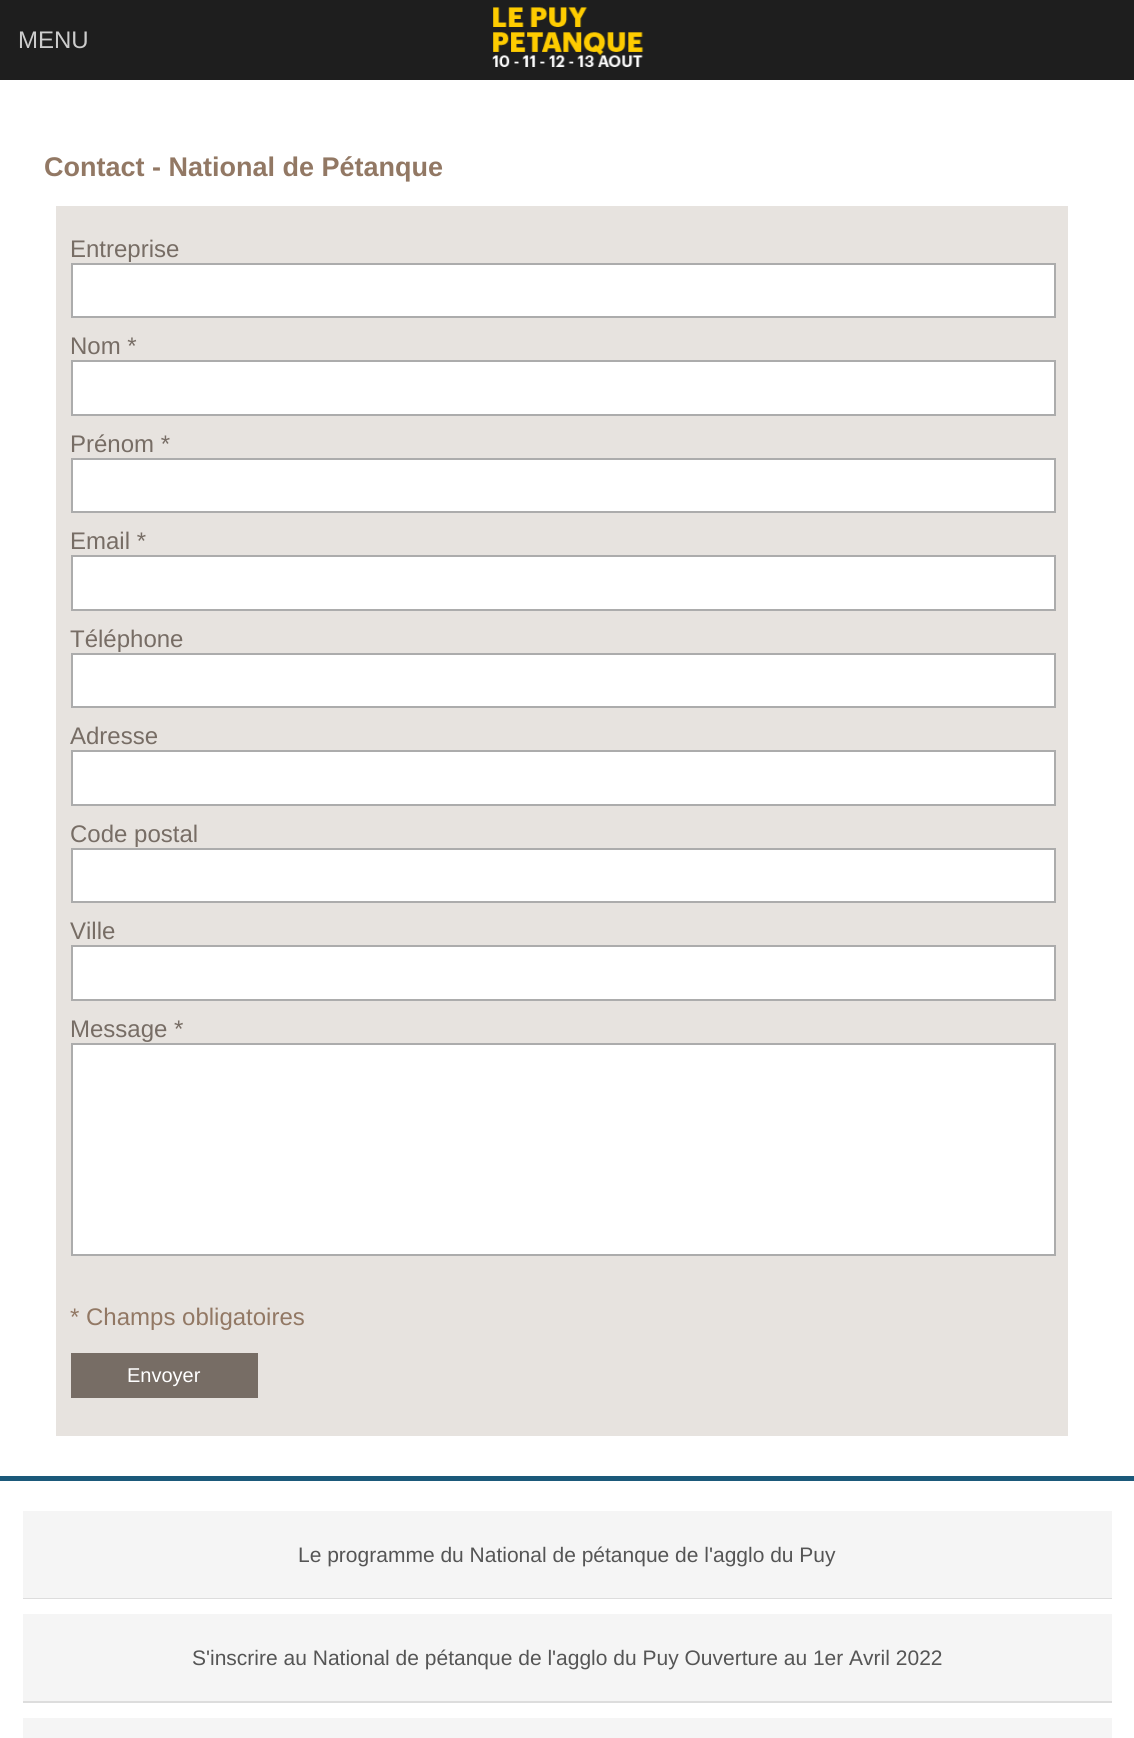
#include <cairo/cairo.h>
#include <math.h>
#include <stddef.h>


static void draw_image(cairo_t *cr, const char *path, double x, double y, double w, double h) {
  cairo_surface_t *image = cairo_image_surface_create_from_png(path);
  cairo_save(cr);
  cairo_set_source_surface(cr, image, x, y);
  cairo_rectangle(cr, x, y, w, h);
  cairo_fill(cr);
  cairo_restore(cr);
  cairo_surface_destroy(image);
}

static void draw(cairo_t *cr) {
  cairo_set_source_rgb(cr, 1, 1, 1);
  cairo_paint(cr);
  cairo_set_source_rgb(cr, 30 / 255.0, 30 / 255.0, 30 / 255.0);
  cairo_rectangle(cr, 0, 0, 1134, 80);
  cairo_fill(cr);
  draw_image(cr, "images/1.png", 492, 7, 152, 60);
  cairo_set_source_rgb(cr, 27 / 255.0, 89 / 255.0, 122 / 255.0);
  cairo_rectangle(cr, 0, 1476, 1134, 5);
  cairo_fill(cr);
  cairo_set_source_rgb(cr, 231 / 255.0, 227 / 255.0, 223 / 255.0);
  cairo_rectangle(cr, 56, 206, 1012, 1230);
  cairo_fill(cr);
  cairo_set_source_rgb(cr, 1, 1, 1);
  cairo_rectangle(cr, 72, 264, 983, 53);
  cairo_fill_preserve(cr);
  cairo_set_source_rgb(cr, 172 / 255.0, 172 / 255.0, 172 / 255.0);
  cairo_stroke(cr);
  cairo_set_source_rgb(cr, 1, 1, 1);
  cairo_rectangle(cr, 72, 361, 983, 54);
  cairo_fill_preserve(cr);
  cairo_set_source_rgb(cr, 172 / 255.0, 172 / 255.0, 172 / 255.0);
  cairo_stroke(cr);
  cairo_set_source_rgb(cr, 1, 1, 1);
  cairo_rectangle(cr, 72, 459, 983, 53);
  cairo_fill_preserve(cr);
  cairo_set_source_rgb(cr, 172 / 255.0, 172 / 255.0, 172 / 255.0);
  cairo_stroke(cr);
  cairo_set_source_rgb(cr, 1, 1, 1);
  cairo_rectangle(cr, 72, 556, 983, 54);
  cairo_fill_preserve(cr);
  cairo_set_source_rgb(cr, 172 / 255.0, 172 / 255.0, 172 / 255.0);
  cairo_stroke(cr);
  cairo_set_source_rgb(cr, 1, 1, 1);
  cairo_rectangle(cr, 72, 654, 983, 53);
  cairo_fill_preserve(cr);
  cairo_set_source_rgb(cr, 172 / 255.0, 172 / 255.0, 172 / 255.0);
  cairo_stroke(cr);
  cairo_set_source_rgb(cr, 1, 1, 1);
  cairo_rectangle(cr, 72, 751, 983, 54);
  cairo_fill_preserve(cr);
  cairo_set_source_rgb(cr, 172 / 255.0, 172 / 255.0, 172 / 255.0);
  cairo_stroke(cr);
  cairo_set_source_rgb(cr, 1, 1, 1);
  cairo_rectangle(cr, 72, 849, 983, 53);
  cairo_fill_preserve(cr);
  cairo_set_source_rgb(cr, 172 / 255.0, 172 / 255.0, 172 / 255.0);
  cairo_stroke(cr);
  cairo_set_source_rgb(cr, 1, 1, 1);
  cairo_rectangle(cr, 72, 946, 983, 54);
  cairo_fill_preserve(cr);
  cairo_set_source_rgb(cr, 172 / 255.0, 172 / 255.0, 172 / 255.0);
  cairo_stroke(cr);
  cairo_set_source_rgb(cr, 1, 1, 1);
  cairo_rectangle(cr, 72, 1044, 983, 211);
  cairo_fill_preserve(cr);
  cairo_set_source_rgb(cr, 172 / 255.0, 172 / 255.0, 172 / 255.0);
  cairo_stroke(cr);
  cairo_set_source_rgb(cr, 119 / 255.0, 109 / 255.0, 101 / 255.0);
  cairo_rectangle(cr, 71, 1353, 187, 45);
  cairo_fill(cr);
  cairo_set_source_rgb(cr, 245 / 255.0, 245 / 255.0, 245 / 255.0);
  cairo_rectangle(cr, 23, 1511, 1089, 87);
  cairo_fill(cr);
  cairo_set_source_rgb(cr, 221 / 255.0, 221 / 255.0, 221 / 255.0);
  cairo_rectangle(cr, 23, 1598, 1089, 1);
  cairo_fill(cr);
  cairo_set_source_rgb(cr, 245 / 255.0, 245 / 255.0, 245 / 255.0);
  cairo_rectangle(cr, 23, 1614, 1089, 87);
  cairo_fill(cr);
  cairo_set_source_rgb(cr, 221 / 255.0, 221 / 255.0, 221 / 255.0);
  cairo_rectangle(cr, 23, 1701, 1089, 2);
  cairo_fill(cr);
  cairo_set_source_rgb(cr, 245 / 255.0, 245 / 255.0, 245 / 255.0);
  cairo_rectangle(cr, 23, 1718, 1089, 20);
  cairo_fill(cr);
  cairo_select_font_face(cr, "Liberation Sans", CAIRO_FONT_SLANT_NORMAL, CAIRO_FONT_WEIGHT_NORMAL);
  cairo_set_font_size(cr, 24);
  cairo_set_source_rgb(cr, 204 / 255.0, 204 / 255.0, 204 / 255.0);
  cairo_move_to(cr, 18, 48);
  cairo_show_text(cr, "MENU");
  cairo_select_font_face(cr, "Liberation Sans", CAIRO_FONT_SLANT_NORMAL, CAIRO_FONT_WEIGHT_BOLD);
  cairo_set_font_size(cr, 27);
  cairo_set_source_rgb(cr, 146 / 255.0, 120 / 255.0, 100 / 255.0);
  cairo_move_to(cr, 44, 176);
  cairo_show_text(cr, "Contact - National de Pétanque");
  cairo_select_font_face(cr, "Liberation Sans", CAIRO_FONT_SLANT_NORMAL, CAIRO_FONT_WEIGHT_NORMAL);
  cairo_set_font_size(cr, 24);
  cairo_set_source_rgb(cr, 119 / 255.0, 109 / 255.0, 101 / 255.0);
  cairo_move_to(cr, 70, 257);
  cairo_show_text(cr, "Entreprise");
  cairo_move_to(cr, 70, 354);
  cairo_show_text(cr, "Nom *");
  cairo_move_to(cr, 70, 452);
  cairo_show_text(cr, "Prénom *");
  cairo_move_to(cr, 70, 549);
  cairo_show_text(cr, "Email *");
  cairo_move_to(cr, 70, 647);
  cairo_show_text(cr, "Téléphone");
  cairo_move_to(cr, 70, 744);
  cairo_show_text(cr, "Adresse");
  cairo_move_to(cr, 70, 842);
  cairo_show_text(cr, "Code postal");
  cairo_move_to(cr, 70, 939);
  cairo_show_text(cr, "Ville");
  cairo_move_to(cr, 70, 1037);
  cairo_show_text(cr, "Message *");
  cairo_set_source_rgb(cr, 146 / 255.0, 120 / 255.0, 100 / 255.0);
  cairo_move_to(cr, 70, 1325);
  cairo_show_text(cr, "* Champs obligatoires");
  cairo_set_font_size(cr, 20);
  cairo_set_source_rgb(cr, 1, 1, 1);
  cairo_move_to(cr, 127, 1382);
  cairo_show_text(cr, "Envoyer");
  cairo_set_font_size(cr, 21);
  cairo_set_source_rgb(cr, 85 / 255.0, 85 / 255.0, 85 / 255.0);
  cairo_move_to(cr, 298, 1562);
  cairo_show_text(cr, "Le programme du National de pétanque de l'agglo du Puy");
  cairo_move_to(cr, 192, 1665);
  cairo_show_text(cr, "S'inscrire au National de pétanque de l'agglo du Puy Ouverture au 1er Avril 2022");
}

int main(void) {
  cairo_surface_t *surface = cairo_image_surface_create(CAIRO_FORMAT_RGB24, 1134, 1738);
  cairo_t *cr = cairo_create(surface);
  cairo_font_options_t *options = cairo_font_options_create();
  cairo_font_options_set_hint_metrics(options, CAIRO_HINT_METRICS_OFF);
  cairo_font_options_set_hint_style(options, CAIRO_HINT_STYLE_NONE);
  cairo_set_font_options(cr, options);
  cairo_set_miter_limit(cr, 4);
  draw(cr);
  cairo_surface_write_to_png(surface, "out.png");
  cairo_font_options_destroy(options);
  cairo_destroy(cr);
  cairo_surface_destroy(surface);
  return 0;
}
